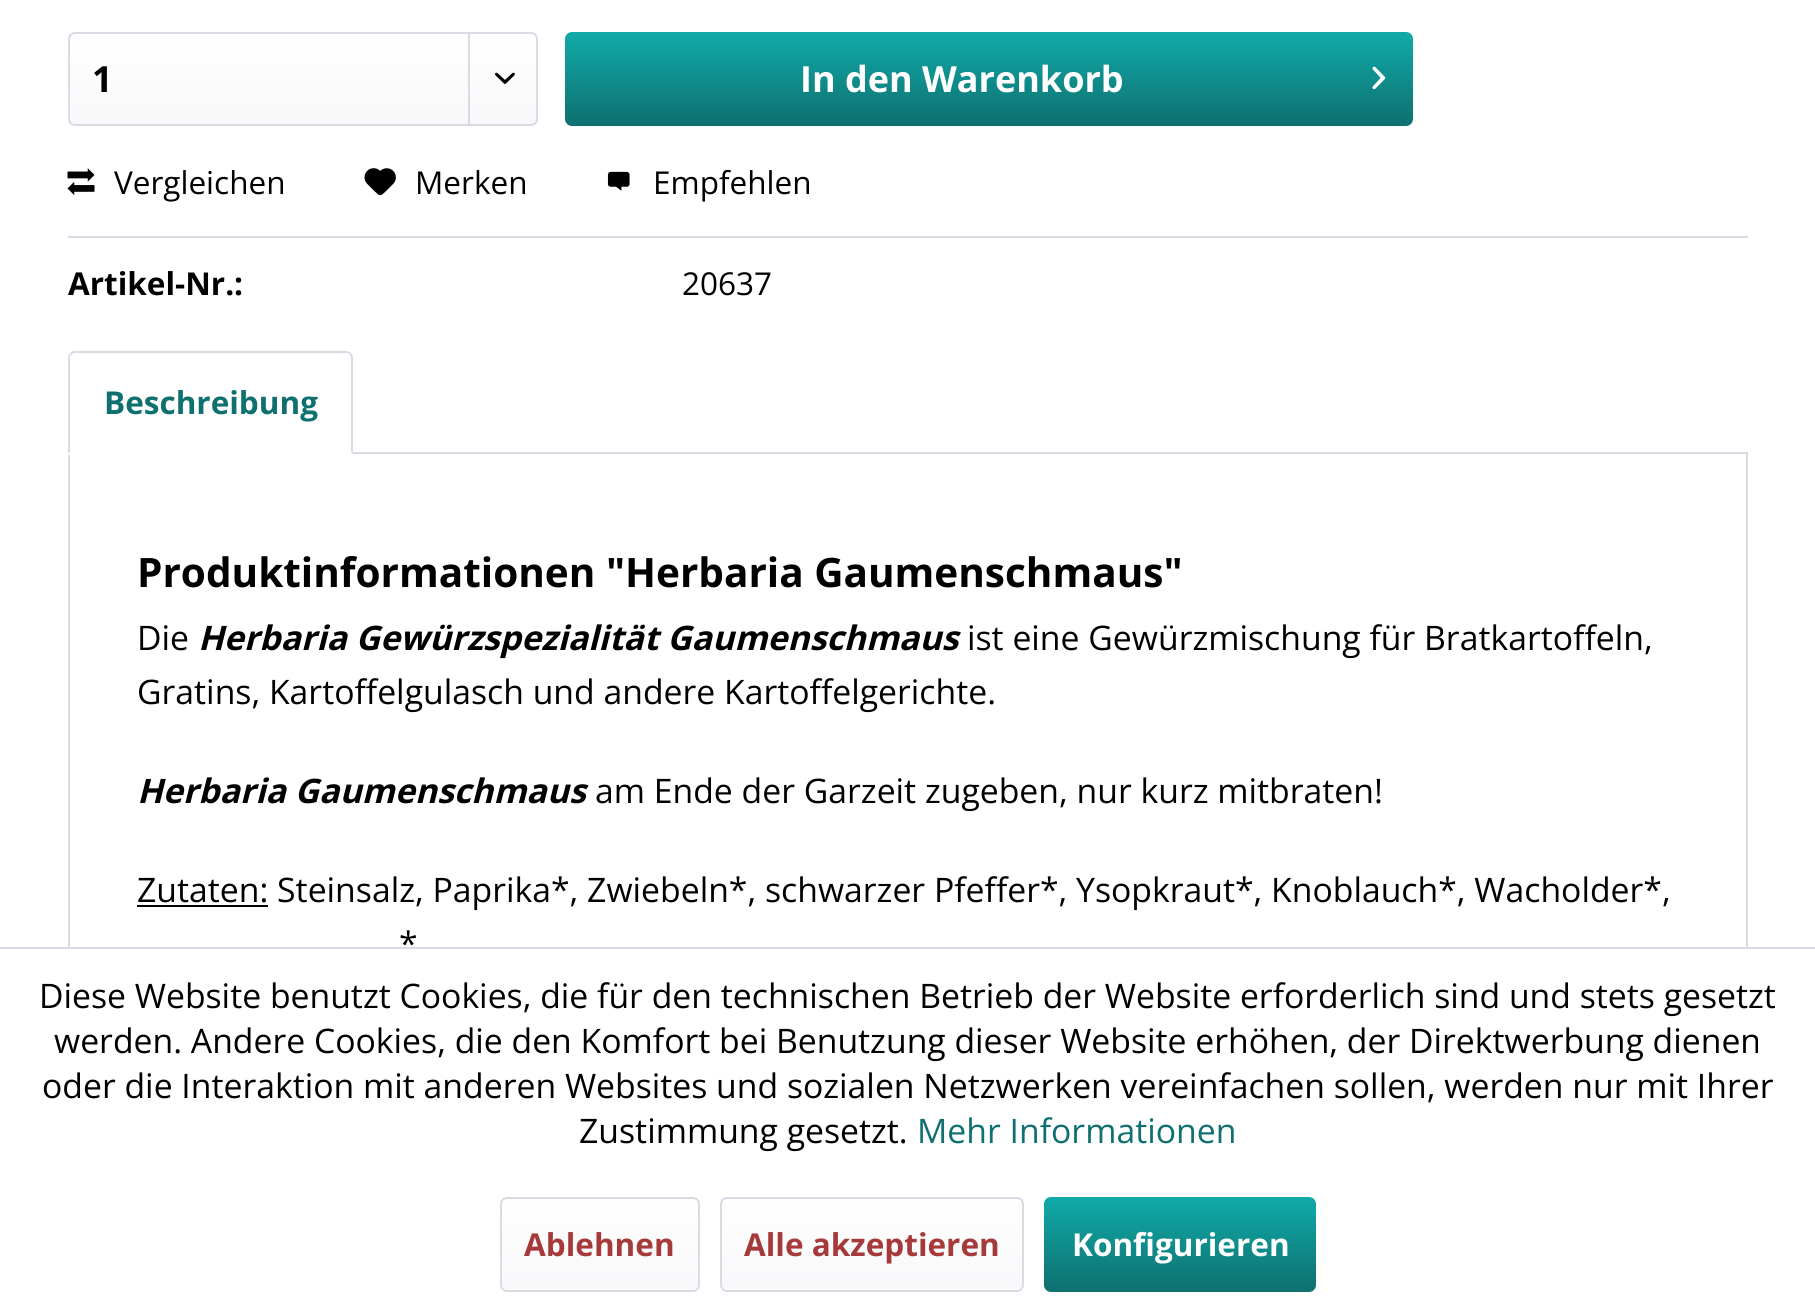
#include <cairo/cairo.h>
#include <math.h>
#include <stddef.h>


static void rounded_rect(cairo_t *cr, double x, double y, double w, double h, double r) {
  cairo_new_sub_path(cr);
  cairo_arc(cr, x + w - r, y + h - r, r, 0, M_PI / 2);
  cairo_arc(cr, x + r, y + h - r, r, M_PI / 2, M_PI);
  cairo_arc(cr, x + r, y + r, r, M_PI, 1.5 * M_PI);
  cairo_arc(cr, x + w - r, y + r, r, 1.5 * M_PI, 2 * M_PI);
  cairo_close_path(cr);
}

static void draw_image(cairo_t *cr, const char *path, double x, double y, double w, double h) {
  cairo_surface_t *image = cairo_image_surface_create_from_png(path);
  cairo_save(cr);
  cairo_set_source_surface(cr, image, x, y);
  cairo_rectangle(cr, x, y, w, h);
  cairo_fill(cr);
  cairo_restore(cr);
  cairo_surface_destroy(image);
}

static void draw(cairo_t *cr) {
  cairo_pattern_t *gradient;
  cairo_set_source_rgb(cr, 1, 1, 1);
  cairo_paint(cr);
  gradient = cairo_pattern_create_linear(303, 34, 303, 124);
  cairo_pattern_add_color_stop_rgba(gradient, 0, 1, 1, 1, 1);
  cairo_pattern_add_color_stop_rgba(gradient, 1, 248 / 255.0, 248 / 255.0, 250 / 255.0, 1);
  cairo_set_source(cr, gradient);
  cairo_pattern_destroy(gradient);
  rounded_rect(cr, 70, 34, 466, 90, 5);
  cairo_fill(cr);
  rounded_rect(cr, 69, 33, 468, 92, 6);
  cairo_set_source_rgb(cr, 218 / 255.0, 218 / 255.0, 229 / 255.0);
  cairo_stroke(cr);
  cairo_rectangle(cr, 468, 34, 2, 90);
  cairo_fill(cr);
  draw_image(cr, "images/1.png", 495, 72, 20, 12);
  gradient = cairo_pattern_create_linear(989, 31, 989, 126);
  cairo_pattern_add_color_stop_rgba(gradient, 0, 16 / 255.0, 171 / 255.0, 169 / 255.0, 1);
  cairo_pattern_add_color_stop_rgba(gradient, 1, 14 / 255.0, 112 / 255.0, 111 / 255.0, 1);
  cairo_set_source(cr, gradient);
  cairo_pattern_destroy(gradient);
  rounded_rect(cr, 565, 32, 848, 94, 7);
  cairo_fill(cr);
  draw_image(cr, "images/2.png", 1372, 66, 14, 24);
  cairo_set_source_rgb(cr, 218 / 255.0, 218 / 255.0, 229 / 255.0);
  cairo_rectangle(cr, 68, 236, 1680, 2);
  cairo_fill(cr);
  draw_image(cr, "images/3.png", 67, 168, 28, 27);
  draw_image(cr, "images/4.png", 364, 168, 32, 28);
  draw_image(cr, "images/5.png", 607, 171, 23, 20);
  cairo_rectangle(cr, 69, 453, 1678, 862);
  cairo_stroke(cr);
  cairo_set_source_rgb(cr, 1, 1, 1);
  cairo_new_path(cr);
  cairo_move_to(cr, 75, 351);
  cairo_line_to(cr, 346, 351);
  cairo_curve_to(cr, 350, 351, 353, 354, 353, 358);
  cairo_line_to(cr, 353, 455);
  cairo_line_to(cr, 68, 455);
  cairo_line_to(cr, 68, 358);
  cairo_curve_to(cr, 68, 354, 71, 351, 75, 351);
  cairo_close_path(cr);
  cairo_fill(cr);
  cairo_set_source_rgb(cr, 218 / 255.0, 218 / 255.0, 229 / 255.0);
  cairo_new_path(cr);
  cairo_move_to(cr, 74, 351);
  cairo_curve_to(cr, 72, 351, 71, 352, 70, 353);
  cairo_line_to(cr, 71, 355);
  cairo_line_to(cr, 74, 353);
  cairo_line_to(cr, 346, 353);
  cairo_curve_to(cr, 347, 353, 349, 353, 350, 355);
  cairo_line_to(cr, 351, 353);
  cairo_curve_to(cr, 350, 352, 348, 351, 346, 351);
  cairo_close_path(cr);
  cairo_fill(cr);
  cairo_new_path(cr);
  cairo_move_to(cr, 351, 353);
  cairo_curve_to(cr, 352, 354, 353, 356, 353, 358);
  cairo_line_to(cr, 353, 454);
  cairo_line_to(cr, 351, 452);
  cairo_line_to(cr, 351, 357);
  cairo_line_to(cr, 350, 355);
  cairo_close_path(cr);
  cairo_fill(cr);
  cairo_set_source_rgb(cr, 1, 1, 1);
  cairo_new_path(cr);
  cairo_move_to(cr, 353, 454);
  cairo_line_to(cr, 68, 454);
  cairo_line_to(cr, 70, 452);
  cairo_line_to(cr, 351, 452);
  cairo_close_path(cr);
  cairo_fill(cr);
  cairo_set_source_rgb(cr, 218 / 255.0, 218 / 255.0, 229 / 255.0);
  cairo_new_path(cr);
  cairo_move_to(cr, 70, 353);
  cairo_curve_to(cr, 69, 354, 68, 356, 68, 358);
  cairo_line_to(cr, 68, 454);
  cairo_line_to(cr, 70, 452);
  cairo_line_to(cr, 70, 358);
  cairo_curve_to(cr, 70, 357, 70, 355, 71, 355);
  cairo_close_path(cr);
  cairo_fill(cr);
  cairo_set_source_rgb(cr, 0, 0, 0);
  cairo_rectangle(cr, 137, 905, 131, 2);
  cairo_fill(cr);
  cairo_set_source_rgb(cr, 1, 1, 1);
  cairo_rectangle(cr, 68, 949, 1680, 365);
  cairo_fill(cr);
  cairo_set_source_rgb(cr, 218 / 255.0, 218 / 255.0, 229 / 255.0);
  cairo_rectangle(cr, 0, 947, 1815, 2);
  cairo_fill(cr);
  gradient = cairo_pattern_create_linear(600, 1199, 600, 1289);
  cairo_pattern_add_color_stop_rgba(gradient, 0, 1, 1, 1, 1);
  cairo_pattern_add_color_stop_rgba(gradient, 1, 248 / 255.0, 248 / 255.0, 250 / 255.0, 1);
  cairo_set_source(cr, gradient);
  cairo_pattern_destroy(gradient);
  rounded_rect(cr, 502, 1199, 196, 90, 5);
  cairo_fill(cr);
  rounded_rect(cr, 501, 1198, 198, 93, 6);
  cairo_set_source_rgb(cr, 218 / 255.0, 218 / 255.0, 229 / 255.0);
  cairo_stroke(cr);
  gradient = cairo_pattern_create_linear(872, 1199, 872, 1289);
  cairo_pattern_add_color_stop_rgba(gradient, 0, 1, 1, 1, 1);
  cairo_pattern_add_color_stop_rgba(gradient, 1, 248 / 255.0, 248 / 255.0, 250 / 255.0, 1);
  cairo_set_source(cr, gradient);
  cairo_pattern_destroy(gradient);
  rounded_rect(cr, 722, 1199, 300, 90, 5);
  cairo_fill(cr);
  rounded_rect(cr, 721, 1198, 302, 93, 6);
  cairo_set_source_rgb(cr, 218 / 255.0, 218 / 255.0, 229 / 255.0);
  cairo_stroke(cr);
  gradient = cairo_pattern_create_linear(1180, 1197, 1180, 1292);
  cairo_pattern_add_color_stop_rgba(gradient, 0, 16 / 255.0, 171 / 255.0, 169 / 255.0, 1);
  cairo_pattern_add_color_stop_rgba(gradient, 1, 14 / 255.0, 112 / 255.0, 111 / 255.0, 1);
  cairo_set_source(cr, gradient);
  cairo_pattern_destroy(gradient);
  rounded_rect(cr, 1044, 1197, 272, 95, 7);
  cairo_fill(cr);
  cairo_select_font_face(cr, "Open Sans", CAIRO_FONT_SLANT_NORMAL, CAIRO_FONT_WEIGHT_BOLD);
  cairo_set_font_size(cr, 36);
  cairo_set_source_rgb(cr, 0, 0, 0);
  cairo_move_to(cr, 92, 92);
  cairo_show_text(cr, "1");
  cairo_set_source_rgb(cr, 1, 1, 1);
  cairo_move_to(cr, 800, 92);
  cairo_show_text(cr, "In den Warenkorb");
  cairo_select_font_face(cr, "Open Sans", CAIRO_FONT_SLANT_NORMAL, CAIRO_FONT_WEIGHT_NORMAL);
  cairo_set_font_size(cr, 31.5);
  cairo_set_source_rgb(cr, 0, 0, 0);
  cairo_move_to(cr, 114, 194);
  cairo_show_text(cr, "Vergleichen");
  cairo_move_to(cr, 415, 194);
  cairo_show_text(cr, "Merken");
  cairo_move_to(cr, 653, 194);
  cairo_show_text(cr, "Empfehlen");
  cairo_select_font_face(cr, "Open Sans", CAIRO_FONT_SLANT_NORMAL, CAIRO_FONT_WEIGHT_BOLD);
  cairo_move_to(cr, 68, 295);
  cairo_show_text(cr, "Artikel-Nr.:");
  cairo_select_font_face(cr, "Open Sans", CAIRO_FONT_SLANT_NORMAL, CAIRO_FONT_WEIGHT_NORMAL);
  cairo_move_to(cr, 682, 295);
  cairo_show_text(cr, "20637");
  cairo_select_font_face(cr, "Open Sans", CAIRO_FONT_SLANT_NORMAL, CAIRO_FONT_WEIGHT_BOLD);
  cairo_set_source_rgb(cr, 14 / 255.0, 112 / 255.0, 111 / 255.0);
  cairo_move_to(cr, 104, 414);
  cairo_show_text(cr, "Beschreibung");
  cairo_set_font_size(cr, 40.5);
  cairo_set_source_rgb(cr, 0, 0, 0);
  cairo_move_to(cr, 137, 587);
  cairo_show_text(cr, "Produktinformationen \"Herbaria Gaumenschmaus\"");
  cairo_select_font_face(cr, "Open Sans", CAIRO_FONT_SLANT_NORMAL, CAIRO_FONT_WEIGHT_NORMAL);
  cairo_set_font_size(cr, 33.75);
  cairo_move_to(cr, 137, 650);
  cairo_show_text(cr, "Die");
  cairo_select_font_face(cr, "Open Sans", CAIRO_FONT_SLANT_ITALIC, CAIRO_FONT_WEIGHT_BOLD);
  cairo_move_to(cr, 198, 650);
  cairo_show_text(cr, "Herbaria Gewürzspezialität Gaumenschmaus");
  cairo_select_font_face(cr, "Open Sans", CAIRO_FONT_SLANT_NORMAL, CAIRO_FONT_WEIGHT_NORMAL);
  cairo_move_to(cr, 967, 650);
  cairo_show_text(cr, "ist eine Gewürzmischung für Bratkartoffeln,");
  cairo_move_to(cr, 137, 704);
  cairo_show_text(cr, "Gratins, Kartoffelgulasch und andere Kartoffelgerichte.");
  cairo_select_font_face(cr, "Open Sans", CAIRO_FONT_SLANT_ITALIC, CAIRO_FONT_WEIGHT_BOLD);
  cairo_move_to(cr, 137, 803);
  cairo_show_text(cr, "Herbaria Gaumenschmaus");
  cairo_select_font_face(cr, "Open Sans", CAIRO_FONT_SLANT_NORMAL, CAIRO_FONT_WEIGHT_NORMAL);
  cairo_move_to(cr, 595, 803);
  cairo_show_text(cr, "am Ende der Garzeit zugeben, nur kurz mitbraten!");
  cairo_move_to(cr, 137, 902);
  cairo_show_text(cr, "Zutaten: Steinsalz, Paprika*, Zwiebeln*, schwarzer Pfeffer*, Ysopkraut*, Knoblauch*, Wacholder*,");
  cairo_move_to(cr, 399, 956);
  cairo_show_text(cr, "*");
  cairo_move_to(cr, 39, 1008);
  cairo_show_text(cr, "Diese Website benutzt Cookies, die für den technischen Betrieb der Website erforderlich sind und stets gesetzt");
  cairo_move_to(cr, 54, 1053);
  cairo_show_text(cr, "werden. Andere Cookies, die den Komfort bei Benutzung dieser Website erhöhen, der Direktwerbung dienen");
  cairo_move_to(cr, 42, 1098);
  cairo_show_text(cr, "oder die Interaktion mit anderen Websites und sozialen Netzwerken vereinfachen sollen, werden nur mit Ihrer");
  cairo_move_to(cr, 579, 1143);
  cairo_show_text(cr, "Zustimmung gesetzt.");
  cairo_set_source_rgb(cr, 14 / 255.0, 112 / 255.0, 111 / 255.0);
  cairo_move_to(cr, 917, 1143);
  cairo_show_text(cr, "Mehr Informationen");
  cairo_select_font_face(cr, "Open Sans", CAIRO_FONT_SLANT_NORMAL, CAIRO_FONT_WEIGHT_BOLD);
  cairo_set_font_size(cr, 31.5);
  cairo_set_source_rgb(cr, 166 / 255.0, 58 / 255.0, 59 / 255.0);
  cairo_move_to(cr, 524, 1256);
  cairo_show_text(cr, "Ablehnen");
  cairo_move_to(cr, 744, 1256);
  cairo_show_text(cr, "Alle akzeptieren");
  cairo_set_source_rgb(cr, 1, 1, 1);
  cairo_move_to(cr, 1072, 1256);
  cairo_show_text(cr, "Konfigurieren");
}

int main(void) {
  cairo_surface_t *surface = cairo_image_surface_create(CAIRO_FORMAT_RGB24, 1815, 1314);
  cairo_t *cr = cairo_create(surface);
  cairo_font_options_t *options = cairo_font_options_create();
  cairo_font_options_set_hint_metrics(options, CAIRO_HINT_METRICS_OFF);
  cairo_font_options_set_hint_style(options, CAIRO_HINT_STYLE_NONE);
  cairo_set_font_options(cr, options);
  cairo_set_miter_limit(cr, 4);
  draw(cr);
  cairo_surface_write_to_png(surface, "out.png");
  cairo_font_options_destroy(options);
  cairo_destroy(cr);
  cairo_surface_destroy(surface);
  return 0;
}
